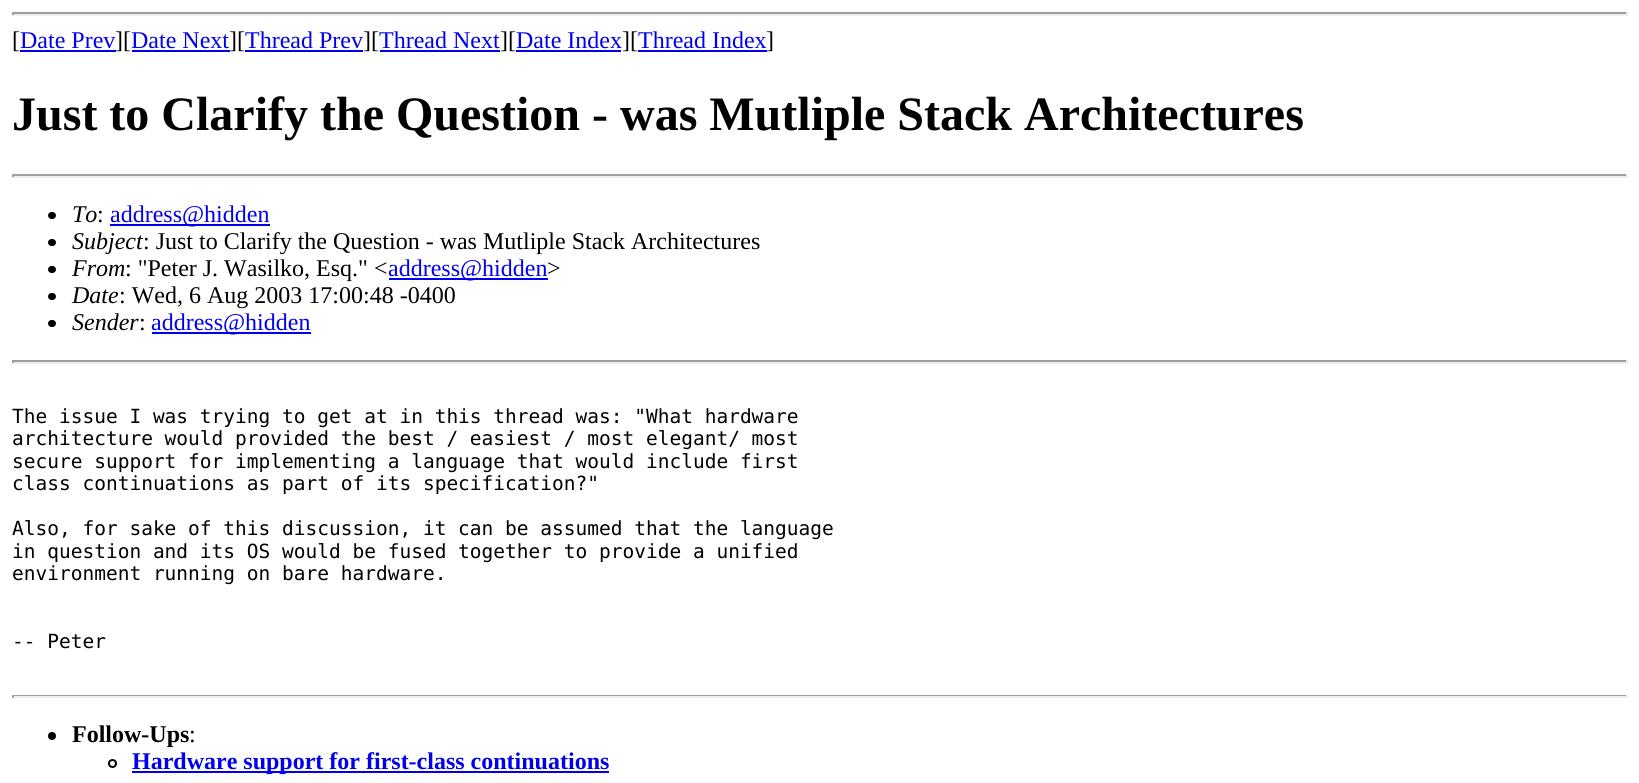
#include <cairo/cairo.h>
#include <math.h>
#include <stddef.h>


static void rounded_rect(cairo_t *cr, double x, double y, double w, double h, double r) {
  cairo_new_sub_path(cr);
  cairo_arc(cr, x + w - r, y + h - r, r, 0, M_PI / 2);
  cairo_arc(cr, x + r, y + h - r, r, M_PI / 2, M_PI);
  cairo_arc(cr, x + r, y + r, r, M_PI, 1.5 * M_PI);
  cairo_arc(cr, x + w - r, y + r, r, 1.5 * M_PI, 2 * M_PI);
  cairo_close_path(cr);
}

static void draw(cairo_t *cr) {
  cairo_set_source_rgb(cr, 1, 1, 1);
  cairo_paint(cr);
  cairo_set_source_rgb(cr, 159 / 255.0, 159 / 255.0, 159 / 255.0);
  cairo_rectangle(cr, 12, 12, 1616, 2);
  cairo_fill(cr);
  cairo_set_source_rgb(cr, 238 / 255.0, 238 / 255.0, 238 / 255.0);
  cairo_rectangle(cr, 1626, 12, 2, 3);
  cairo_fill(cr);
  cairo_rectangle(cr, 12, 14, 1616, 2);
  cairo_fill(cr);
  cairo_set_source_rgb(cr, 159 / 255.0, 159 / 255.0, 159 / 255.0);
  cairo_rectangle(cr, 12, 12, 2, 3);
  cairo_fill(cr);
  cairo_set_source_rgb(cr, 0, 0, 238 / 255.0);
  cairo_rectangle(cr, 20, 50, 96, 2);
  cairo_fill(cr);
  cairo_rectangle(cr, 132, 50, 98, 2);
  cairo_fill(cr);
  cairo_rectangle(cr, 245, 50, 118, 2);
  cairo_fill(cr);
  cairo_rectangle(cr, 380, 50, 120, 2);
  cairo_fill(cr);
  cairo_rectangle(cr, 516, 50, 105, 2);
  cairo_fill(cr);
  cairo_rectangle(cr, 638, 50, 129, 2);
  cairo_fill(cr);
  cairo_set_source_rgb(cr, 159 / 255.0, 159 / 255.0, 159 / 255.0);
  cairo_rectangle(cr, 12, 174, 1616, 2);
  cairo_fill(cr);
  cairo_set_source_rgb(cr, 238 / 255.0, 238 / 255.0, 238 / 255.0);
  cairo_rectangle(cr, 1626, 174, 2, 3);
  cairo_fill(cr);
  cairo_rectangle(cr, 12, 176, 1616, 2);
  cairo_fill(cr);
  cairo_set_source_rgb(cr, 159 / 255.0, 159 / 255.0, 159 / 255.0);
  cairo_rectangle(cr, 12, 174, 2, 3);
  cairo_fill(cr);
  cairo_set_source_rgb(cr, 0, 0, 0);
  rounded_rect(cr, 48, 212, 8, 7, 3.5);
  cairo_fill(cr);
  cairo_set_source_rgb(cr, 0, 0, 238 / 255.0);
  cairo_rectangle(cr, 110, 224, 160, 2);
  cairo_fill(cr);
  cairo_set_source_rgb(cr, 0, 0, 0);
  rounded_rect(cr, 48, 239, 8, 7, 3.5);
  cairo_fill(cr);
  rounded_rect(cr, 48, 266, 8, 7, 3.5);
  cairo_fill(cr);
  cairo_set_source_rgb(cr, 0, 0, 238 / 255.0);
  cairo_rectangle(cr, 389, 278, 159, 2);
  cairo_fill(cr);
  cairo_set_source_rgb(cr, 0, 0, 0);
  rounded_rect(cr, 48, 293, 8, 7, 3.5);
  cairo_fill(cr);
  rounded_rect(cr, 48, 320, 8, 7, 3.5);
  cairo_fill(cr);
  cairo_set_source_rgb(cr, 0, 0, 238 / 255.0);
  cairo_rectangle(cr, 152, 332, 159, 2);
  cairo_fill(cr);
  cairo_set_source_rgb(cr, 159 / 255.0, 159 / 255.0, 159 / 255.0);
  cairo_rectangle(cr, 12, 360, 1616, 2);
  cairo_fill(cr);
  cairo_set_source_rgb(cr, 238 / 255.0, 238 / 255.0, 238 / 255.0);
  cairo_rectangle(cr, 1626, 360, 2, 3);
  cairo_fill(cr);
  cairo_rectangle(cr, 12, 362, 1616, 2);
  cairo_fill(cr);
  cairo_set_source_rgb(cr, 159 / 255.0, 159 / 255.0, 159 / 255.0);
  cairo_rectangle(cr, 12, 360, 2, 3);
  cairo_fill(cr);
  cairo_rectangle(cr, 12, 695, 1616, 1);
  cairo_fill(cr);
  cairo_set_source_rgb(cr, 238 / 255.0, 238 / 255.0, 238 / 255.0);
  cairo_rectangle(cr, 1626, 695, 2, 3);
  cairo_fill(cr);
  cairo_rectangle(cr, 12, 696, 1616, 2);
  cairo_fill(cr);
  cairo_set_source_rgb(cr, 159 / 255.0, 159 / 255.0, 159 / 255.0);
  cairo_rectangle(cr, 12, 695, 2, 3);
  cairo_fill(cr);
  cairo_set_source_rgb(cr, 0, 0, 0);
  cairo_arc(cr, 52, 736, 4, 0, 2 * M_PI);
  cairo_fill(cr);
  cairo_arc(cr, 112.5, 763.5, 3.5, 0, 2 * M_PI);
  cairo_stroke(cr);
  cairo_set_source_rgb(cr, 0, 0, 238 / 255.0);
  cairo_rectangle(cr, 132, 771, 477, 2);
  cairo_fill(cr);
  cairo_select_font_face(cr, "Liberation Serif", CAIRO_FONT_SLANT_NORMAL, CAIRO_FONT_WEIGHT_NORMAL);
  cairo_set_font_size(cr, 24);
  cairo_set_source_rgb(cr, 0, 0, 0);
  cairo_move_to(cr, 12, 48);
  cairo_show_text(cr, "[");
  cairo_set_source_rgb(cr, 0, 0, 238 / 255.0);
  cairo_move_to(cr, 20, 48);
  cairo_show_text(cr, "Date Prev");
  cairo_set_source_rgb(cr, 0, 0, 0);
  cairo_move_to(cr, 115, 48);
  cairo_show_text(cr, "][");
  cairo_set_source_rgb(cr, 0, 0, 238 / 255.0);
  cairo_move_to(cr, 131, 48);
  cairo_show_text(cr, "Date Next");
  cairo_set_source_rgb(cr, 0, 0, 0);
  cairo_move_to(cr, 229, 48);
  cairo_show_text(cr, "][");
  cairo_set_source_rgb(cr, 0, 0, 238 / 255.0);
  cairo_move_to(cr, 245, 48);
  cairo_show_text(cr, "Thread Prev");
  cairo_set_source_rgb(cr, 0, 0, 0);
  cairo_move_to(cr, 363, 48);
  cairo_show_text(cr, "][");
  cairo_set_source_rgb(cr, 0, 0, 238 / 255.0);
  cairo_move_to(cr, 379, 48);
  cairo_show_text(cr, "Thread Next");
  cairo_set_source_rgb(cr, 0, 0, 0);
  cairo_move_to(cr, 500, 48);
  cairo_show_text(cr, "][");
  cairo_set_source_rgb(cr, 0, 0, 238 / 255.0);
  cairo_move_to(cr, 516, 48);
  cairo_show_text(cr, "Date Index");
  cairo_set_source_rgb(cr, 0, 0, 0);
  cairo_move_to(cr, 622, 48);
  cairo_show_text(cr, "][");
  cairo_set_source_rgb(cr, 0, 0, 238 / 255.0);
  cairo_move_to(cr, 638, 48);
  cairo_show_text(cr, "Thread Index");
  cairo_set_source_rgb(cr, 0, 0, 0);
  cairo_move_to(cr, 766, 48);
  cairo_show_text(cr, "]");
  cairo_select_font_face(cr, "Liberation Serif", CAIRO_FONT_SLANT_NORMAL, CAIRO_FONT_WEIGHT_BOLD);
  cairo_set_font_size(cr, 48);
  cairo_move_to(cr, 12, 130);
  cairo_show_text(cr, "Just to Clarify the Question - was Mutliple Stack Architectures");
  cairo_select_font_face(cr, "Liberation Serif", CAIRO_FONT_SLANT_ITALIC, CAIRO_FONT_WEIGHT_NORMAL);
  cairo_set_font_size(cr, 24);
  cairo_move_to(cr, 72, 222);
  cairo_show_text(cr, "To");
  cairo_select_font_face(cr, "Liberation Serif", CAIRO_FONT_SLANT_NORMAL, CAIRO_FONT_WEIGHT_NORMAL);
  cairo_move_to(cr, 97, 222);
  cairo_show_text(cr, ":");
  cairo_set_source_rgb(cr, 0, 0, 238 / 255.0);
  cairo_move_to(cr, 110, 222);
  cairo_show_text(cr, "address@hidden");
  cairo_select_font_face(cr, "Liberation Serif", CAIRO_FONT_SLANT_ITALIC, CAIRO_FONT_WEIGHT_NORMAL);
  cairo_set_source_rgb(cr, 0, 0, 0);
  cairo_move_to(cr, 72, 249);
  cairo_show_text(cr, "Subject");
  cairo_select_font_face(cr, "Liberation Serif", CAIRO_FONT_SLANT_NORMAL, CAIRO_FONT_WEIGHT_NORMAL);
  cairo_move_to(cr, 143, 249);
  cairo_show_text(cr, ": Just to Clarify the Question - was Mutliple Stack Architectures");
  cairo_select_font_face(cr, "Liberation Serif", CAIRO_FONT_SLANT_ITALIC, CAIRO_FONT_WEIGHT_NORMAL);
  cairo_move_to(cr, 72, 276);
  cairo_show_text(cr, "From");
  cairo_select_font_face(cr, "Liberation Serif", CAIRO_FONT_SLANT_NORMAL, CAIRO_FONT_WEIGHT_NORMAL);
  cairo_move_to(cr, 125, 276);
  cairo_show_text(cr, ": \"Peter J. Wasilko, Esq.\" <");
  cairo_set_source_rgb(cr, 0, 0, 238 / 255.0);
  cairo_move_to(cr, 388, 276);
  cairo_show_text(cr, "address@hidden");
  cairo_set_source_rgb(cr, 0, 0, 0);
  cairo_move_to(cr, 547, 276);
  cairo_show_text(cr, ">");
  cairo_select_font_face(cr, "Liberation Serif", CAIRO_FONT_SLANT_ITALIC, CAIRO_FONT_WEIGHT_NORMAL);
  cairo_move_to(cr, 72, 303);
  cairo_show_text(cr, "Date");
  cairo_select_font_face(cr, "Liberation Serif", CAIRO_FONT_SLANT_NORMAL, CAIRO_FONT_WEIGHT_NORMAL);
  cairo_move_to(cr, 119, 303);
  cairo_show_text(cr, ": Wed, 6 Aug 2003 17:00:48 -0400");
  cairo_select_font_face(cr, "Liberation Serif", CAIRO_FONT_SLANT_ITALIC, CAIRO_FONT_WEIGHT_NORMAL);
  cairo_move_to(cr, 72, 330);
  cairo_show_text(cr, "Sender");
  cairo_select_font_face(cr, "Liberation Serif", CAIRO_FONT_SLANT_NORMAL, CAIRO_FONT_WEIGHT_NORMAL);
  cairo_move_to(cr, 139, 330);
  cairo_show_text(cr, ":");
  cairo_set_source_rgb(cr, 0, 0, 238 / 255.0);
  cairo_move_to(cr, 151, 330);
  cairo_show_text(cr, "address@hidden");
  cairo_select_font_face(cr, "DejaVu Sans Mono", CAIRO_FONT_SLANT_NORMAL, CAIRO_FONT_WEIGHT_NORMAL);
  cairo_set_font_size(cr, 19.5);
  cairo_set_source_rgb(cr, 0, 0, 0);
  cairo_move_to(cr, 12, 423);
  cairo_show_text(cr, "The issue I was trying to get at in this thread was: \"What hardware");
  cairo_move_to(cr, 12, 445);
  cairo_show_text(cr, "architecture would provided the best / easiest / most elegant/ most");
  cairo_move_to(cr, 12, 468);
  cairo_show_text(cr, "secure support for implementing a language that would include first");
  cairo_move_to(cr, 12, 490);
  cairo_show_text(cr, "class continuations as part of its specification?\"");
  cairo_move_to(cr, 12, 535);
  cairo_show_text(cr, "Also, for sake of this discussion, it can be assumed that the language");
  cairo_move_to(cr, 12, 558);
  cairo_show_text(cr, "in question and its OS would be fused together to provide a unified");
  cairo_move_to(cr, 12, 580);
  cairo_show_text(cr, "environment running on bare hardware.");
  cairo_move_to(cr, 12, 648);
  cairo_show_text(cr, "-- Peter");
  cairo_select_font_face(cr, "Liberation Serif", CAIRO_FONT_SLANT_NORMAL, CAIRO_FONT_WEIGHT_BOLD);
  cairo_set_font_size(cr, 24);
  cairo_move_to(cr, 72, 742);
  cairo_show_text(cr, "Follow-Ups");
  cairo_select_font_face(cr, "Liberation Serif", CAIRO_FONT_SLANT_NORMAL, CAIRO_FONT_WEIGHT_NORMAL);
  cairo_move_to(cr, 189, 742);
  cairo_show_text(cr, ":");
  cairo_select_font_face(cr, "Liberation Serif", CAIRO_FONT_SLANT_NORMAL, CAIRO_FONT_WEIGHT_BOLD);
  cairo_set_source_rgb(cr, 0, 0, 238 / 255.0);
  cairo_move_to(cr, 132, 769);
  cairo_show_text(cr, "Hardware support for first-class continuations");
}

int main(void) {
  cairo_surface_t *surface = cairo_image_surface_create(CAIRO_FORMAT_RGB24, 1639, 783);
  cairo_t *cr = cairo_create(surface);
  cairo_font_options_t *options = cairo_font_options_create();
  cairo_font_options_set_hint_metrics(options, CAIRO_HINT_METRICS_OFF);
  cairo_font_options_set_hint_style(options, CAIRO_HINT_STYLE_NONE);
  cairo_set_font_options(cr, options);
  cairo_set_miter_limit(cr, 4);
  draw(cr);
  cairo_surface_write_to_png(surface, "out.png");
  cairo_font_options_destroy(options);
  cairo_destroy(cr);
  cairo_surface_destroy(surface);
  return 0;
}
